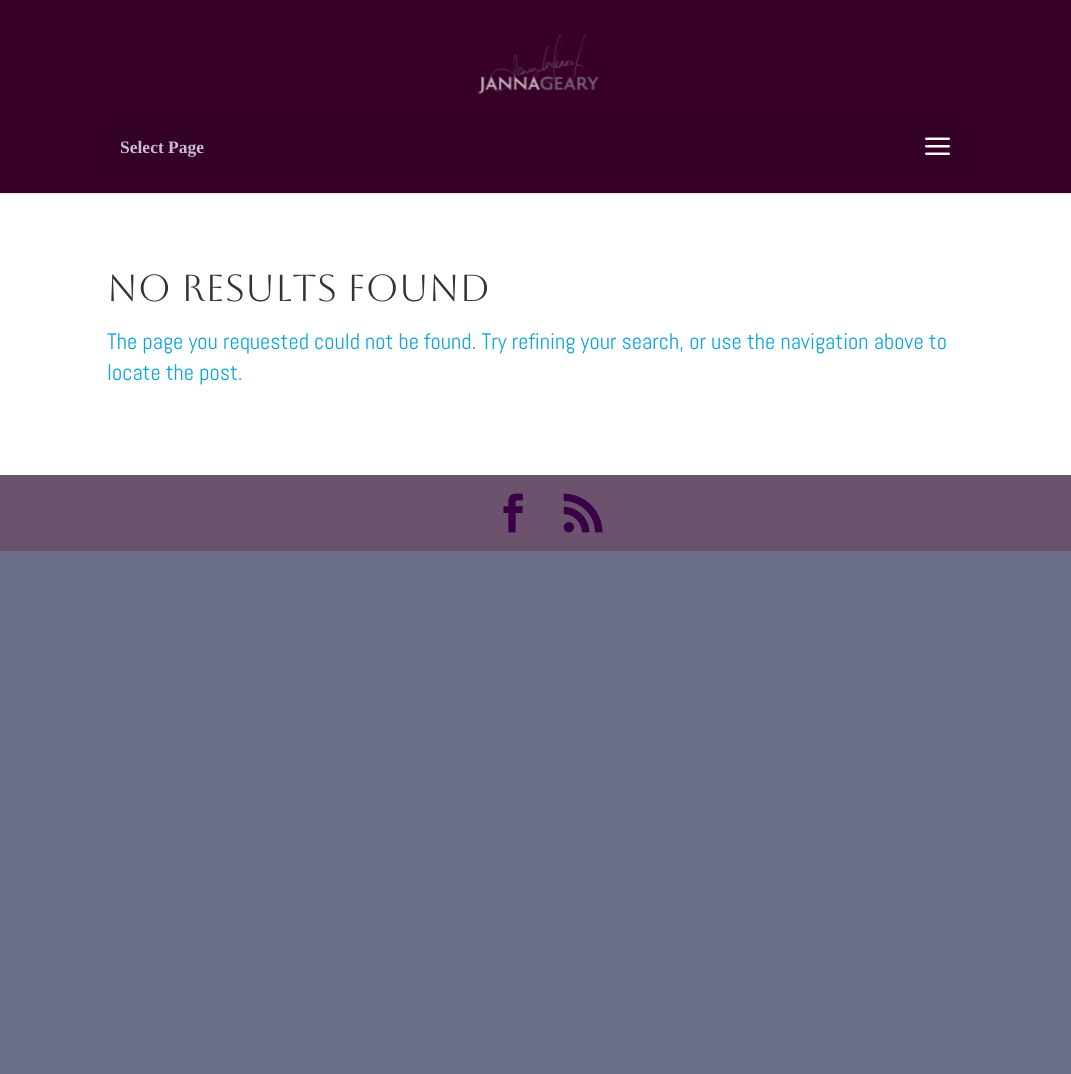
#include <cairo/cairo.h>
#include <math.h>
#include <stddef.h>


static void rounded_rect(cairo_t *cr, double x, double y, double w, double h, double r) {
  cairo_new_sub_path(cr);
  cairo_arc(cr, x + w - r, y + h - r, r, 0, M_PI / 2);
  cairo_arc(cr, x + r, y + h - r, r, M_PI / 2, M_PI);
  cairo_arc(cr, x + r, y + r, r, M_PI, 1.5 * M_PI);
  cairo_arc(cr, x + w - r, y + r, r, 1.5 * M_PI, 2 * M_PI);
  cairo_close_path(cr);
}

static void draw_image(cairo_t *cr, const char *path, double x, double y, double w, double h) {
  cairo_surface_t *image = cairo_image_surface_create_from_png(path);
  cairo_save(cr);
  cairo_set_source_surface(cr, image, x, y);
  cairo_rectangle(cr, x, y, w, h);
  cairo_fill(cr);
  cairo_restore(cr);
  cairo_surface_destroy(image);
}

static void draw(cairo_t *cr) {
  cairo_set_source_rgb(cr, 107 / 255.0, 110 / 255.0, 137 / 255.0);
  cairo_paint(cr);
  cairo_set_source_rgb(cr, 230 / 255.0, 230 / 255.0, 230 / 255.0);
  cairo_rectangle(cr, 0, 193, 1071, 1);
  cairo_fill(cr);
  cairo_set_source_rgb(cr, 56 / 255.0, 0, 39 / 255.0);
  cairo_rectangle(cr, 0, 0, 1071, 193);
  cairo_fill(cr);
  draw_image(cr, "images/1.png", 478, 34, 121, 60);
  cairo_set_source_rgb(cr, 53 / 255.0, 0, 37 / 255.0);
  rounded_rect(cr, 108, 125, 856, 43, 6);
  cairo_fill(cr);
  draw_image(cr, "images/2.png", 925, 137, 25, 18);
  cairo_set_source_rgb(cr, 1, 1, 1);
  cairo_rectangle(cr, 0, 194, 1071, 281);
  cairo_fill(cr);
  cairo_set_source_rgb(cr, 108 / 255.0, 83 / 255.0, 109 / 255.0);
  cairo_rectangle(cr, 0, 475, 1071, 76);
  cairo_fill(cr);
  draw_image(cr, "images/3.png", 503, 493, 20, 40);
  draw_image(cr, "images/4.png", 563, 493, 40, 40);
  cairo_select_font_face(cr, "Liberation Serif", CAIRO_FONT_SLANT_NORMAL, CAIRO_FONT_WEIGHT_BOLD);
  cairo_set_font_size(cr, 17.5);
  cairo_set_source_rgb(cr, 198 / 255.0, 188 / 255.0, 214 / 255.0);
  cairo_move_to(cr, 120, 153);
  cairo_show_text(cr, "Select Page");
  cairo_select_font_face(cr, "Aboreto", CAIRO_FONT_SLANT_NORMAL, CAIRO_FONT_WEIGHT_NORMAL);
  cairo_set_font_size(cr, 37.5);
  cairo_set_source_rgb(cr, 51 / 255.0, 51 / 255.0, 51 / 255.0);
  cairo_move_to(cr, 107, 301);
  cairo_show_text(cr, "No Results Found");
  cairo_select_font_face(cr, "Abel", CAIRO_FONT_SLANT_NORMAL, CAIRO_FONT_WEIGHT_NORMAL);
  cairo_set_font_size(cr, 22.5);
  cairo_set_source_rgb(cr, 13 / 255.0, 164 / 255.0, 219 / 255.0);
  cairo_move_to(cr, 107, 349);
  cairo_show_text(cr, "The page you requested could not be found. Try refining your search, or use the navigation above to");
  cairo_move_to(cr, 107, 380);
  cairo_show_text(cr, "locate the post.");
}

int main(void) {
  cairo_surface_t *surface = cairo_image_surface_create(CAIRO_FORMAT_RGB24, 1071, 1074);
  cairo_t *cr = cairo_create(surface);
  cairo_font_options_t *options = cairo_font_options_create();
  cairo_font_options_set_hint_metrics(options, CAIRO_HINT_METRICS_OFF);
  cairo_font_options_set_hint_style(options, CAIRO_HINT_STYLE_NONE);
  cairo_set_font_options(cr, options);
  cairo_set_miter_limit(cr, 4);
  draw(cr);
  cairo_surface_write_to_png(surface, "out.png");
  cairo_font_options_destroy(options);
  cairo_destroy(cr);
  cairo_surface_destroy(surface);
  return 0;
}
